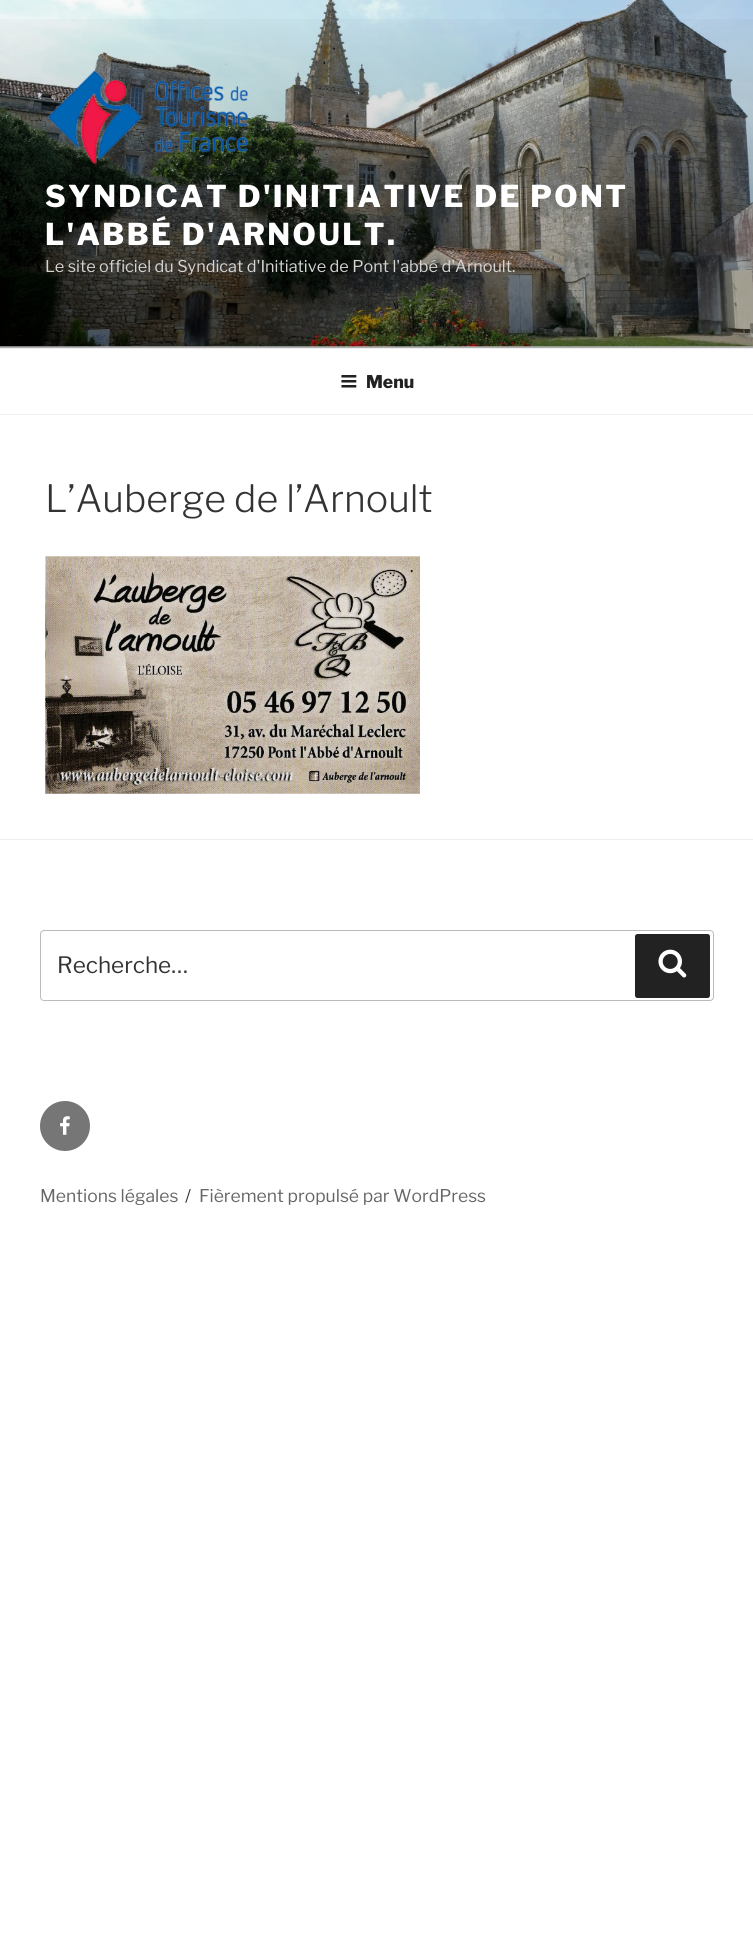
#include <cairo/cairo.h>
#include <math.h>
#include <stddef.h>


static void draw_spaced(cairo_t *cr, double x, double y, const char *s, double letter, double word) {
  cairo_move_to(cr, x, y);
  while (*s) {
    char ch[5] = {0};
    int n = 0;
    do ch[n++] = *s++; while ((*s & 0xC0) == 0x80);
    cairo_show_text(cr, ch);
    cairo_rel_move_to(cr, letter + word * (*ch == ' '), 0);
  }
}

static void rounded_rect(cairo_t *cr, double x, double y, double w, double h, double r) {
  cairo_new_sub_path(cr);
  cairo_arc(cr, x + w - r, y + h - r, r, 0, M_PI / 2);
  cairo_arc(cr, x + r, y + h - r, r, M_PI / 2, M_PI);
  cairo_arc(cr, x + r, y + r, r, M_PI, 1.5 * M_PI);
  cairo_arc(cr, x + w - r, y + r, r, 1.5 * M_PI, 2 * M_PI);
  cairo_close_path(cr);
}

static void draw_image(cairo_t *cr, const char *path, double x, double y, double w, double h) {
  cairo_surface_t *image = cairo_image_surface_create_from_png(path);
  cairo_save(cr);
  cairo_set_source_surface(cr, image, x, y);
  cairo_rectangle(cr, x, y, w, h);
  cairo_fill(cr);
  cairo_restore(cr);
  cairo_surface_destroy(image);
}

static void draw(cairo_t *cr) {
  cairo_pattern_t *gradient;
  cairo_set_source_rgb(cr, 1, 1, 1);
  cairo_paint(cr);
  cairo_set_source_rgb(cr, 250 / 255.0, 250 / 255.0, 250 / 255.0);
  cairo_rectangle(cr, 0, 346, 753, 2);
  cairo_fill(cr);
  draw_image(cr, "images/1.png", 0, 0, 753, 347);
  gradient = cairo_pattern_create_linear(377, 0, 377, 348);
  cairo_pattern_add_color_stop_rgba(gradient, 0, 0, 0, 0, 0);
  cairo_pattern_add_color_stop_rgba(gradient, 0.75, 0, 0, 0, 0.3);
  cairo_pattern_add_color_stop_rgba(gradient, 1, 0, 0, 0, 0.3);
  cairo_set_source(cr, gradient);
  cairo_pattern_destroy(gradient);
  cairo_rectangle(cr, 0, 19, 753, 329);
  cairo_fill(cr);
  draw_image(cr, "images/2.png", 48, 70, 201, 95);
  cairo_set_source_rgb(cr, 238 / 255.0, 238 / 255.0, 238 / 255.0);
  cairo_rectangle(cr, 0, 348, 753, 1);
  cairo_fill(cr);
  cairo_rectangle(cr, 0, 414, 753, 1);
  cairo_fill(cr);
  draw_image(cr, "images/3.png", 341, 375, 16, 13);
  draw_image(cr, "images/4.png", 45, 556, 375, 238);
  cairo_rectangle(cr, 0, 839, 753, 1);
  cairo_fill(cr);
  rounded_rect(cr, 40.5, 930.5, 673, 70, 3.5);
  cairo_set_source_rgb(cr, 187 / 255.0, 187 / 255.0, 187 / 255.0);
  cairo_set_line_width(cr, 1);
  cairo_stroke(cr);
  cairo_set_source_rgb(cr, 34 / 255.0, 34 / 255.0, 34 / 255.0);
  rounded_rect(cr, 635, 934, 75, 64, 2.5);
  cairo_fill(cr);
  draw_image(cr, "images/5.png", 658, 949, 29, 29);
  cairo_set_source_rgb(cr, 118 / 255.0, 118 / 255.0, 118 / 255.0);
  cairo_arc(cr, 65, 1126, 25, 0, 2 * M_PI);
  cairo_fill(cr);
  draw_image(cr, "images/6.png", 60, 1116, 10, 19);
  cairo_select_font_face(cr, "Libre Franklin Thin", CAIRO_FONT_SLANT_NORMAL, CAIRO_FONT_WEIGHT_NORMAL);
  cairo_set_font_size(cr, 30);
  cairo_set_source_rgb(cr, 1, 1, 1);
  draw_spaced(cr, 45, 207, "SYNDICAT D'INITIATIVE DE PONT", 2.4, 0);
  draw_spaced(cr, 45, 245, "L'ABBÉ D'ARNOULT.", 2.4, 0);
  cairo_select_font_face(cr, "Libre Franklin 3 Thin", CAIRO_FONT_SLANT_NORMAL, CAIRO_FONT_WEIGHT_NORMAL);
  cairo_set_font_size(cr, 16.25);
  cairo_set_source_rgb(cr, 214 / 255.0, 213 / 255.0, 212 / 255.0);
  cairo_move_to(cr, 45, 272);
  cairo_show_text(cr, "Le site officiel du Syndicat d'Initiative de Pont l'abbé d'Arnoult.");
  cairo_select_font_face(cr, "Libre Franklin Thin", CAIRO_FONT_SLANT_NORMAL, CAIRO_FONT_WEIGHT_NORMAL);
  cairo_set_font_size(cr, 17.5);
  cairo_set_source_rgb(cr, 34 / 255.0, 34 / 255.0, 34 / 255.0);
  cairo_move_to(cr, 366, 388);
  cairo_show_text(cr, "Menu");
  cairo_select_font_face(cr, "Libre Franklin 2 Thin", CAIRO_FONT_SLANT_NORMAL, CAIRO_FONT_WEIGHT_NORMAL);
  cairo_set_font_size(cr, 37.5);
  cairo_set_source_rgb(cr, 51 / 255.0, 51 / 255.0, 51 / 255.0);
  cairo_move_to(cr, 45, 512);
  cairo_show_text(cr, "L’Auberge de l’Arnoult");
  cairo_select_font_face(cr, "Libre Franklin 3 Thin", CAIRO_FONT_SLANT_NORMAL, CAIRO_FONT_WEIGHT_NORMAL);
  cairo_set_font_size(cr, 22.5);
  cairo_move_to(cr, 57, 973);
  cairo_show_text(cr, "Recherche…");
  cairo_set_font_size(cr, 17.5);
  cairo_set_source_rgb(cr, 102 / 255.0, 102 / 255.0, 102 / 255.0);
  cairo_move_to(cr, 40, 1202);
  cairo_show_text(cr, "Mentions légales");
  cairo_set_source_rgb(cr, 51 / 255.0, 51 / 255.0, 51 / 255.0);
  cairo_move_to(cr, 185, 1202);
  cairo_show_text(cr, "/");
  cairo_set_source_rgb(cr, 102 / 255.0, 102 / 255.0, 102 / 255.0);
  cairo_move_to(cr, 199, 1202);
  cairo_show_text(cr, "Fièrement propulsé par WordPress");
}

int main(void) {
  cairo_surface_t *surface = cairo_image_surface_create(CAIRO_FORMAT_RGB24, 753, 1952);
  cairo_t *cr = cairo_create(surface);
  cairo_font_options_t *options = cairo_font_options_create();
  cairo_font_options_set_hint_metrics(options, CAIRO_HINT_METRICS_OFF);
  cairo_font_options_set_hint_style(options, CAIRO_HINT_STYLE_NONE);
  cairo_set_font_options(cr, options);
  cairo_set_miter_limit(cr, 4);
  draw(cr);
  cairo_surface_write_to_png(surface, "out.png");
  cairo_font_options_destroy(options);
  cairo_destroy(cr);
  cairo_surface_destroy(surface);
  return 0;
}
